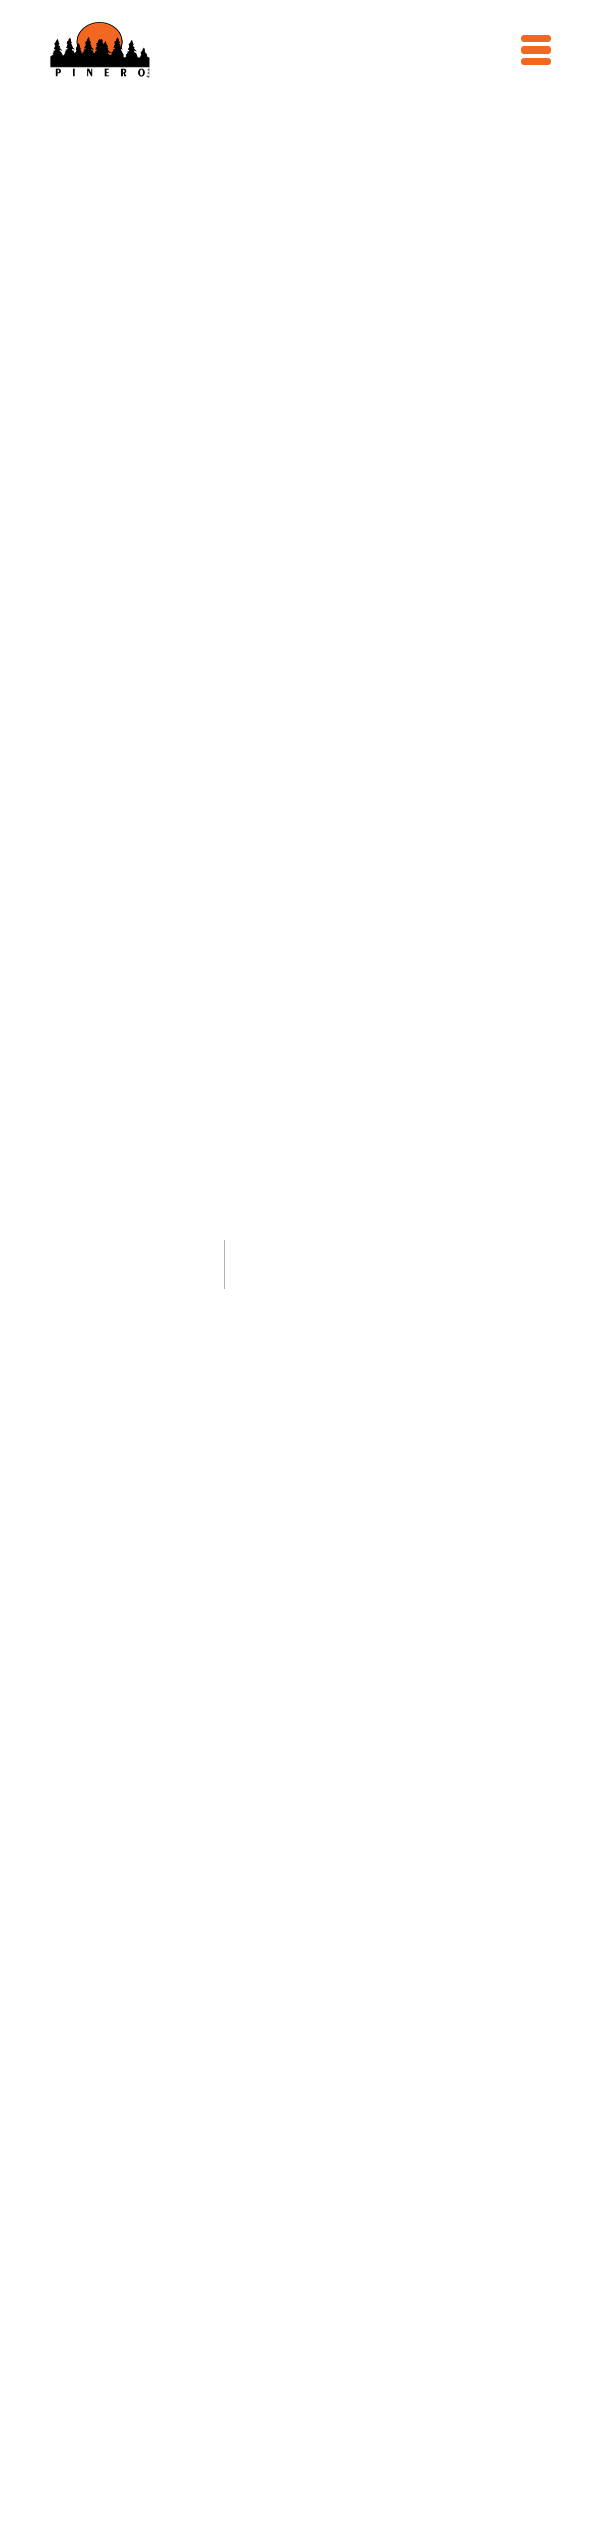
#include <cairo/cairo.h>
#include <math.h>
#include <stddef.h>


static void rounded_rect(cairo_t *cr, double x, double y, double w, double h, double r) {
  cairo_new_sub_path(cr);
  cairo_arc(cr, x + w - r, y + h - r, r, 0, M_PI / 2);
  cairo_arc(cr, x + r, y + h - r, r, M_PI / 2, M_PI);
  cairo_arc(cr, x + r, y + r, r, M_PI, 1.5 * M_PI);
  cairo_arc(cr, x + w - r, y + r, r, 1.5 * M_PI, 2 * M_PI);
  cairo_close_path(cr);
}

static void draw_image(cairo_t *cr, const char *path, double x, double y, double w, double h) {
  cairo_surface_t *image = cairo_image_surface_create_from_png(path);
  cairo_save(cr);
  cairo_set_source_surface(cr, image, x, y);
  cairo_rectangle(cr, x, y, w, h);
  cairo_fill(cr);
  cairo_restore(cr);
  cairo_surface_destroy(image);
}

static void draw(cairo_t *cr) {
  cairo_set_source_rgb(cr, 1, 1, 1);
  cairo_paint(cr);
  draw_image(cr, "images/1.png", 50, 22, 100, 56);
  cairo_set_source_rgb(cr, 242 / 255.0, 103 / 255.0, 34 / 255.0);
  rounded_rect(cr, 521, 35, 30, 7, 3);
  cairo_fill(cr);
  rounded_rect(cr, 521, 58, 30, 7, 3);
  cairo_fill(cr);
  rounded_rect(cr, 521, 46, 30, 8, 3);
  cairo_fill(cr);
  cairo_set_source_rgb(cr, 179 / 255.0, 179 / 255.0, 179 / 255.0);
  cairo_rectangle(cr, 224, 1240, 1, 49);
  cairo_fill(cr);
}

int main(void) {
  cairo_surface_t *surface = cairo_image_surface_create(CAIRO_FORMAT_RGB24, 601, 2529);
  cairo_t *cr = cairo_create(surface);
  cairo_font_options_t *options = cairo_font_options_create();
  cairo_font_options_set_hint_metrics(options, CAIRO_HINT_METRICS_OFF);
  cairo_font_options_set_hint_style(options, CAIRO_HINT_STYLE_NONE);
  cairo_set_font_options(cr, options);
  cairo_set_miter_limit(cr, 4);
  draw(cr);
  cairo_surface_write_to_png(surface, "out.png");
  cairo_font_options_destroy(options);
  cairo_destroy(cr);
  cairo_surface_destroy(surface);
  return 0;
}
